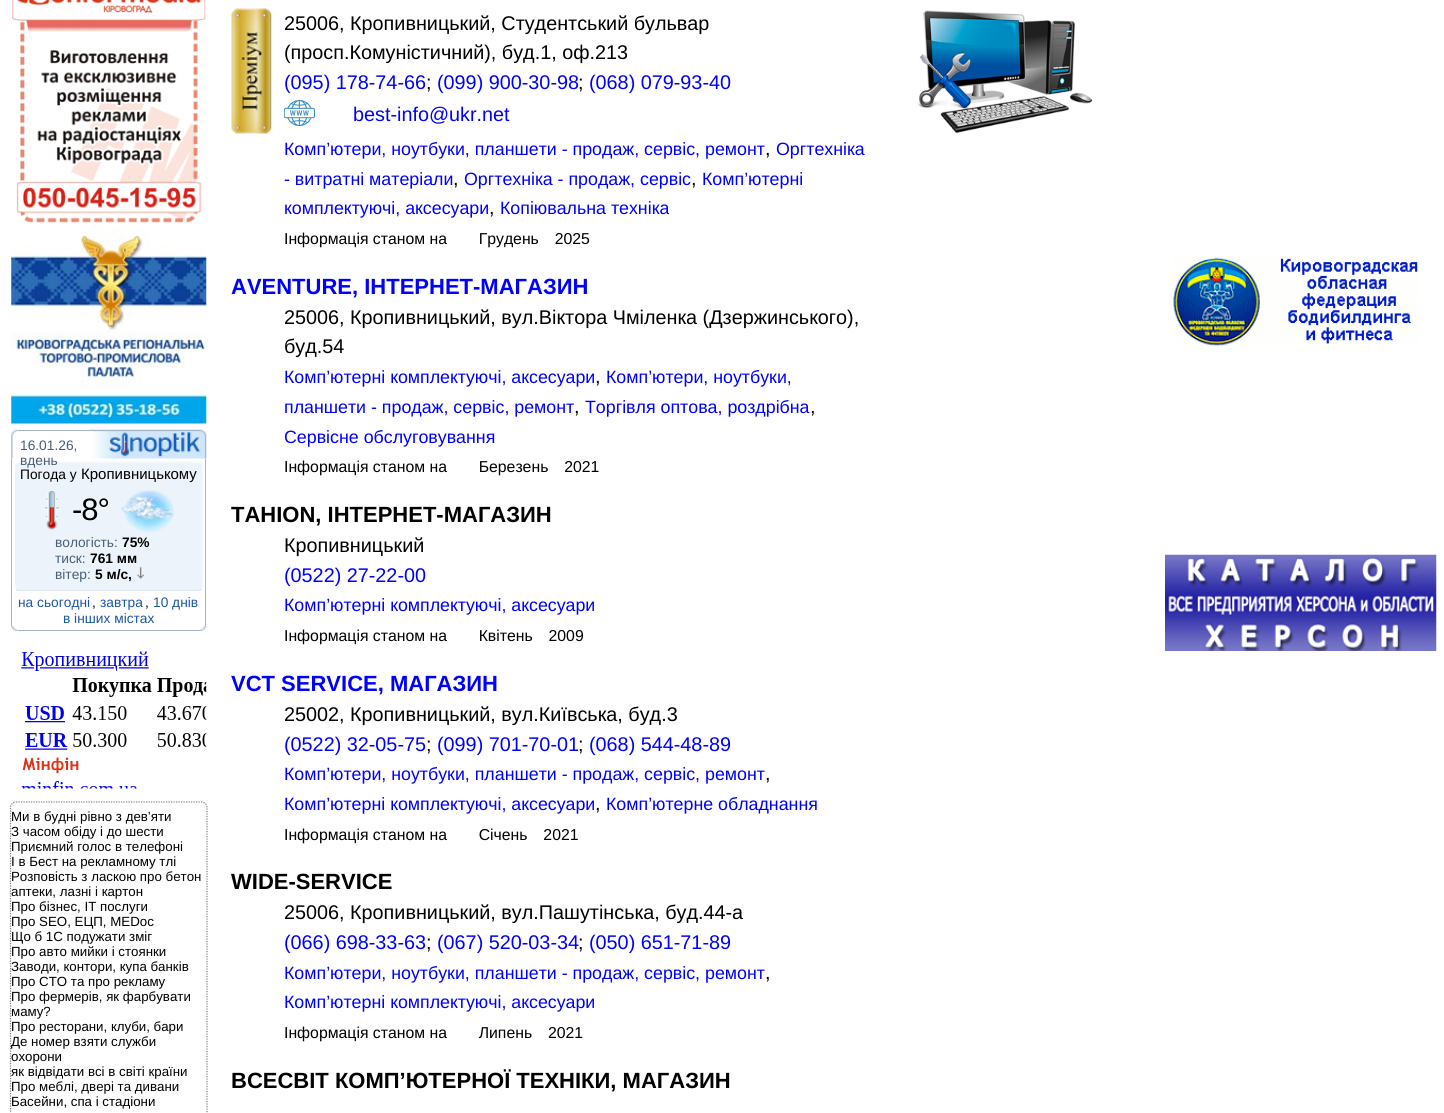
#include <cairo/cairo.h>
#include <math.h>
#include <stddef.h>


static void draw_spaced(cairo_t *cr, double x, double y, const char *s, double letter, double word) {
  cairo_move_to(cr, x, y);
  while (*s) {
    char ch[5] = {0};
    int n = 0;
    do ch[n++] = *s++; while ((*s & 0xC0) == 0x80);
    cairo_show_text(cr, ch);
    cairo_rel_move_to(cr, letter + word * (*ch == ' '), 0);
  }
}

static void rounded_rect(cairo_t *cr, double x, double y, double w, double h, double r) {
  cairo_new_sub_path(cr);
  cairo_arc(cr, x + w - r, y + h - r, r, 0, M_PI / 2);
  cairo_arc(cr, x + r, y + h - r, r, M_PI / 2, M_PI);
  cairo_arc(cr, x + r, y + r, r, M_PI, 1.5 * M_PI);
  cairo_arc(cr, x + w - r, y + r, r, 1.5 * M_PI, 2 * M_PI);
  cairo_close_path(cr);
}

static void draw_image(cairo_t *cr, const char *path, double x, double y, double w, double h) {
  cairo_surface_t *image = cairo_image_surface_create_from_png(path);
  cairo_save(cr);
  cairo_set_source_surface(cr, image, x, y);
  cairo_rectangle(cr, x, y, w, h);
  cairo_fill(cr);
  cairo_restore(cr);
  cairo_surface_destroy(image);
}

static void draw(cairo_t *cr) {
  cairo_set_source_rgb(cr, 1, 1, 1);
  cairo_paint(cr);
  draw_image(cr, "images/1.png", 12, 0, 194, 223);
  draw_image(cr, "images/2.png", 11, 228, 196, 196);
  draw_image(cr, "images/3.png", 90, 429, 117, 30);
  draw_image(cr, "images/4.png", 11, 429, 7, 30);
  cairo_set_source_rgb(cr, 1, 1, 1);
  cairo_rectangle(cr, 90, 431, 3, 27);
  cairo_fill(cr);
  cairo_set_source_rgb(cr, 163 / 255.0, 180 / 255.0, 200 / 255.0);
  cairo_rectangle(cr, 18, 430, 75, 1);
  cairo_fill(cr);
  cairo_rectangle(cr, 205, 459, 1, 167);
  cairo_fill(cr);
  cairo_rectangle(cr, 11, 459, 1, 167);
  cairo_fill(cr);
  cairo_set_source_rgb(cr, 236 / 255.0, 243 / 255.0, 250 / 255.0);
  rounded_rect(cr, 14, 461, 190, 130, 6);
  cairo_fill(cr);
  cairo_new_path(cr);
  cairo_move_to(cr, 201.5, 589);
  cairo_curve_to(cr, 200.5, 590, 199, 590.5, 197.5, 590.5);
  cairo_line_to(cr, 20, 590.5);
  cairo_curve_to(cr, 18.5, 590.5, 17, 590, 16, 589);
  cairo_set_source_rgb(cr, 223 / 255.0, 230 / 255.0, 237 / 255.0);
  cairo_set_line_width(cr, 1.2);
  cairo_stroke(cr);
  cairo_new_path(cr);
  cairo_move_to(cr, 16, 589);
  cairo_curve_to(cr, 15, 588, 14.5, 586.5, 14.5, 585);
  cairo_line_to(cr, 14.5, 467.5);
  cairo_curve_to(cr, 14.5, 466, 15, 464.5, 16, 463.5);
  cairo_curve_to(cr, 17, 462.5, 18.5, 462, 20, 462);
  cairo_line_to(cr, 197.5, 462);
  cairo_curve_to(cr, 199, 462, 200.5, 462.5, 201.5, 463.5);
  cairo_curve_to(cr, 202.5, 464.5, 203, 466, 203, 467.5);
  cairo_line_to(cr, 203, 585);
  cairo_curve_to(cr, 203, 586.5, 202.5, 588, 201.5, 589);
  cairo_set_source_rgb(cr, 1, 1, 1);
  cairo_stroke(cr);
  draw_image(cr, "images/5.png", 45, 491, 14, 39);
  draw_image(cr, "images/6.png", 121, 490, 54, 43);
  draw_image(cr, "images/7.png", 137, 567, 7, 12);
  draw_image(cr, "images/8.png", 200, 626, 7, 5);
  draw_image(cr, "images/9.png", 11, 626, 7, 5);
  cairo_set_source_rgb(cr, 163 / 255.0, 180 / 255.0, 200 / 255.0);
  cairo_rectangle(cr, 18, 630, 182, 1);
  cairo_fill(cr);
  draw_image(cr, "images/10.png", 21, 651, 186, 138);
  cairo_new_path(cr);
  cairo_move_to(cr, 16, 802);
  cairo_line_to(cr, 201, 802);
  cairo_curve_to(cr, 204.5, 802, 207, 804.5, 207, 807.5);
  cairo_line_to(cr, 207, 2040);
  cairo_curve_to(cr, 207, 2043, 204.5, 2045.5, 201, 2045.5);
  cairo_line_to(cr, 16, 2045.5);
  cairo_curve_to(cr, 13, 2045.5, 10.5, 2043, 10.5, 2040);
  cairo_line_to(cr, 10.5, 807.5);
  cairo_curve_to(cr, 10.5, 804.5, 13, 802, 16, 802);
  cairo_close_path(cr);
  cairo_set_source_rgb(cr, 128 / 255.0, 128 / 255.0, 128 / 255.0);
  cairo_set_dash(cr, (double[]){1.25, 1.25}, 2, 0);
  cairo_stroke(cr);
  draw_image(cr, "images/11.png", 231, 8, 41, 126);
  draw_image(cr, "images/12.png", 284, 100, 31, 26);
  draw_image(cr, "images/13.png", 917, 10, 175, 124);
  draw_image(cr, "images/14.png", 1173, 257, 245, 89);
  draw_image(cr, "images/15.png", 1165, 554, 272, 97);
  cairo_select_font_face(cr, "Liberation Sans", CAIRO_FONT_SLANT_NORMAL, CAIRO_FONT_WEIGHT_NORMAL);
  cairo_set_font_size(cr, 13.75);
  cairo_set_source_rgb(cr, 74 / 255.0, 93 / 255.0, 117 / 255.0);
  cairo_move_to(cr, 20, 450);
  cairo_show_text(cr, "16.01.26,");
  cairo_move_to(cr, 20, 465);
  cairo_show_text(cr, "вдень");
  cairo_set_source_rgb(cr, 0, 0, 0);
  cairo_move_to(cr, 20, 479);
  cairo_show_text(cr, "Погода у");
  cairo_set_font_size(cr, 15);
  cairo_move_to(cr, 81, 479);
  cairo_show_text(cr, "Кропивницькому");
  cairo_set_font_size(cr, 31);
  draw_spaced(cr, 72, 520, "-8°", -1, 0);
  cairo_set_font_size(cr, 13.75);
  cairo_set_source_rgb(cr, 74 / 255.0, 93 / 255.0, 117 / 255.0);
  cairo_move_to(cr, 55, 547);
  cairo_show_text(cr, "вологість:");
  cairo_select_font_face(cr, "Liberation Sans", CAIRO_FONT_SLANT_NORMAL, CAIRO_FONT_WEIGHT_BOLD);
  cairo_set_source_rgb(cr, 0, 0, 0);
  cairo_move_to(cr, 122, 547);
  cairo_show_text(cr, "75%");
  cairo_select_font_face(cr, "Liberation Sans", CAIRO_FONT_SLANT_NORMAL, CAIRO_FONT_WEIGHT_NORMAL);
  cairo_set_source_rgb(cr, 74 / 255.0, 93 / 255.0, 117 / 255.0);
  cairo_move_to(cr, 55, 563);
  cairo_show_text(cr, "тиск:");
  cairo_select_font_face(cr, "Liberation Sans", CAIRO_FONT_SLANT_NORMAL, CAIRO_FONT_WEIGHT_BOLD);
  cairo_set_source_rgb(cr, 0, 0, 0);
  cairo_move_to(cr, 90, 563);
  cairo_show_text(cr, "761 мм");
  cairo_select_font_face(cr, "Liberation Sans", CAIRO_FONT_SLANT_NORMAL, CAIRO_FONT_WEIGHT_NORMAL);
  cairo_set_source_rgb(cr, 74 / 255.0, 93 / 255.0, 117 / 255.0);
  cairo_move_to(cr, 55, 579);
  cairo_show_text(cr, "вітер:");
  cairo_select_font_face(cr, "Liberation Sans", CAIRO_FONT_SLANT_NORMAL, CAIRO_FONT_WEIGHT_BOLD);
  cairo_set_source_rgb(cr, 0, 0, 0);
  cairo_move_to(cr, 95, 579);
  cairo_show_text(cr, "5 м/с,");
  cairo_select_font_face(cr, "Liberation Sans", CAIRO_FONT_SLANT_NORMAL, CAIRO_FONT_WEIGHT_NORMAL);
  cairo_set_source_rgb(cr, 28 / 255.0, 86 / 255.0, 165 / 255.0);
  cairo_move_to(cr, 18, 607);
  cairo_show_text(cr, "на сьогодні");
  cairo_set_source_rgb(cr, 0, 0, 0);
  cairo_move_to(cr, 92, 607);
  cairo_show_text(cr, ",");
  cairo_set_source_rgb(cr, 28 / 255.0, 86 / 255.0, 165 / 255.0);
  cairo_move_to(cr, 100, 607);
  cairo_show_text(cr, "завтра");
  cairo_set_source_rgb(cr, 0, 0, 0);
  cairo_move_to(cr, 145, 607);
  cairo_show_text(cr, ",");
  cairo_set_source_rgb(cr, 28 / 255.0, 86 / 255.0, 165 / 255.0);
  cairo_move_to(cr, 153, 607);
  cairo_show_text(cr, "10 днів");
  cairo_move_to(cr, 63, 623);
  cairo_show_text(cr, "в інших містах");
  cairo_set_font_size(cr, 13.3);
  cairo_set_source_rgb(cr, 0, 0, 0);
  cairo_move_to(cr, 11, 821);
  cairo_show_text(cr, "Ми в будні рівно з дев’яти");
  cairo_move_to(cr, 11, 836);
  cairo_show_text(cr, "З часом обіду і до шести");
  cairo_move_to(cr, 11, 851);
  cairo_show_text(cr, "Приємний голос в телефоні");
  cairo_move_to(cr, 11, 866);
  cairo_show_text(cr, "І в Бест на рекламному тлі");
  cairo_move_to(cr, 11, 881);
  cairo_show_text(cr, "Розповість з ласкою про бетон");
  cairo_move_to(cr, 11, 896);
  cairo_show_text(cr, "аптеки, лазні і картон");
  cairo_move_to(cr, 11, 911);
  cairo_show_text(cr, "Про бізнес, IT послуги");
  cairo_move_to(cr, 11, 926);
  cairo_show_text(cr, "Про SEO, ЕЦП, MEDoc");
  cairo_move_to(cr, 11, 941);
  cairo_show_text(cr, "Що б 1С подужати зміг");
  cairo_move_to(cr, 11, 956);
  cairo_show_text(cr, "Про авто мийки і стоянки");
  cairo_move_to(cr, 11, 971);
  cairo_show_text(cr, "Заводи, контори, купа банків");
  cairo_move_to(cr, 11, 986);
  cairo_show_text(cr, "Про СТО та про рекламу");
  cairo_move_to(cr, 11, 1001);
  cairo_show_text(cr, "Про фермерів, як фарбувати");
  cairo_move_to(cr, 11, 1016);
  cairo_show_text(cr, "маму?");
  cairo_move_to(cr, 11, 1031);
  cairo_show_text(cr, "Про ресторани, клуби, бари");
  cairo_move_to(cr, 11, 1046);
  cairo_show_text(cr, "Де номер взяти служби");
  cairo_move_to(cr, 11, 1061);
  cairo_show_text(cr, "охорони");
  cairo_move_to(cr, 11, 1076);
  cairo_show_text(cr, "як відвідати всі в світі країни");
  cairo_move_to(cr, 11, 1091);
  cairo_show_text(cr, "Про меблі, двері та дивани");
  cairo_move_to(cr, 11, 1106);
  cairo_show_text(cr, "Басейни, спа і стадіони");
  cairo_set_font_size(cr, 19.8);
  cairo_move_to(cr, 284, 30);
  cairo_show_text(cr, "25006, Кропивницький, Студентський бульвар");
  cairo_move_to(cr, 284, 59);
  cairo_show_text(cr, "(просп.Комуністичний), буд.1, оф.213");
  cairo_set_source_rgb(cr, 0, 0, 1);
  cairo_move_to(cr, 284, 89);
  cairo_show_text(cr, "(095) 178-74-66");
  cairo_set_source_rgb(cr, 0, 0, 0);
  cairo_move_to(cr, 426, 89);
  cairo_show_text(cr, ";");
  cairo_set_source_rgb(cr, 0, 0, 1);
  cairo_move_to(cr, 437, 89);
  cairo_show_text(cr, "(099) 900-30-98");
  cairo_set_source_rgb(cr, 0, 0, 0);
  cairo_move_to(cr, 578, 89);
  cairo_show_text(cr, ";");
  cairo_set_source_rgb(cr, 0, 0, 1);
  cairo_move_to(cr, 589, 89);
  cairo_show_text(cr, "(068) 079-93-40");
  cairo_move_to(cr, 353, 121);
  cairo_show_text(cr, "best-info@ukr.net");
  cairo_set_font_size(cr, 17.8);
  cairo_move_to(cr, 284, 155);
  cairo_show_text(cr, "Комп’ютери, ноутбуки, планшети - продаж, сервіс, ремонт");
  cairo_set_font_size(cr, 19.8);
  cairo_set_source_rgb(cr, 0, 0, 0);
  cairo_move_to(cr, 765, 155);
  cairo_show_text(cr, ",");
  cairo_set_font_size(cr, 17.8);
  cairo_set_source_rgb(cr, 0, 0, 1);
  cairo_move_to(cr, 776, 155);
  cairo_show_text(cr, "Оргтехніка");
  cairo_move_to(cr, 284, 185);
  cairo_show_text(cr, "- витратні матеріали");
  cairo_set_font_size(cr, 19.8);
  cairo_set_source_rgb(cr, 0, 0, 0);
  cairo_move_to(cr, 453, 185);
  cairo_show_text(cr, ",");
  cairo_set_font_size(cr, 17.8);
  cairo_set_source_rgb(cr, 0, 0, 1);
  cairo_move_to(cr, 464, 185);
  cairo_show_text(cr, "Оргтехніка - продаж, сервіс");
  cairo_set_font_size(cr, 19.8);
  cairo_set_source_rgb(cr, 0, 0, 0);
  cairo_move_to(cr, 691, 185);
  cairo_show_text(cr, ",");
  cairo_set_font_size(cr, 17.8);
  cairo_set_source_rgb(cr, 0, 0, 1);
  cairo_move_to(cr, 702, 185);
  cairo_show_text(cr, "Комп’ютерні");
  cairo_move_to(cr, 284, 214);
  cairo_show_text(cr, "комплектуючі, аксесуари");
  cairo_set_font_size(cr, 19.8);
  cairo_set_source_rgb(cr, 0, 0, 0);
  cairo_move_to(cr, 489, 214);
  cairo_show_text(cr, ",");
  cairo_set_font_size(cr, 17.8);
  cairo_set_source_rgb(cr, 0, 0, 1);
  cairo_move_to(cr, 500, 214);
  cairo_show_text(cr, "Копіювальна техніка");
  cairo_set_font_size(cr, 15.8);
  cairo_set_source_rgb(cr, 0, 0, 0);
  cairo_move_to(cr, 284, 244);
  cairo_show_text(cr, "Інформація станом на  Грудень 2025");
  cairo_select_font_face(cr, "Liberation Sans", CAIRO_FONT_SLANT_NORMAL, CAIRO_FONT_WEIGHT_BOLD);
  cairo_set_font_size(cr, 22);
  cairo_set_source_rgb(cr, 0, 0, 1);
  cairo_move_to(cr, 231, 294);
  cairo_show_text(cr, "AVENTURE, ІНТЕРНЕТ-МАГАЗИН");
  cairo_select_font_face(cr, "Liberation Sans", CAIRO_FONT_SLANT_NORMAL, CAIRO_FONT_WEIGHT_NORMAL);
  cairo_set_font_size(cr, 19.8);
  cairo_set_source_rgb(cr, 0, 0, 0);
  cairo_move_to(cr, 284, 324);
  cairo_show_text(cr, "25006, Кропивницький, вул.Віктора Чміленка (Дзержинського),");
  cairo_move_to(cr, 284, 353);
  cairo_show_text(cr, "буд.54");
  cairo_set_font_size(cr, 17.8);
  cairo_set_source_rgb(cr, 0, 0, 1);
  cairo_move_to(cr, 284, 383);
  cairo_show_text(cr, "Комп’ютерні комплектуючі, аксесуари");
  cairo_set_font_size(cr, 19.8);
  cairo_set_source_rgb(cr, 0, 0, 0);
  cairo_move_to(cr, 595, 383);
  cairo_show_text(cr, ",");
  cairo_set_font_size(cr, 17.8);
  cairo_set_source_rgb(cr, 0, 0, 1);
  cairo_move_to(cr, 606, 383);
  cairo_show_text(cr, "Комп’ютери, ноутбуки,");
  cairo_move_to(cr, 284, 413);
  cairo_show_text(cr, "планшети - продаж, сервіс, ремонт");
  cairo_set_font_size(cr, 19.8);
  cairo_set_source_rgb(cr, 0, 0, 0);
  cairo_move_to(cr, 574, 413);
  cairo_show_text(cr, ",");
  cairo_set_font_size(cr, 17.8);
  cairo_set_source_rgb(cr, 0, 0, 1);
  cairo_move_to(cr, 585, 413);
  cairo_show_text(cr, "Торгівля оптова, роздрібна");
  cairo_set_font_size(cr, 19.8);
  cairo_set_source_rgb(cr, 0, 0, 0);
  cairo_move_to(cr, 810, 413);
  cairo_show_text(cr, ",");
  cairo_set_font_size(cr, 17.8);
  cairo_set_source_rgb(cr, 0, 0, 1);
  cairo_move_to(cr, 284, 443);
  cairo_show_text(cr, "Сервісне обслуговування");
  cairo_set_font_size(cr, 15.8);
  cairo_set_source_rgb(cr, 0, 0, 0);
  cairo_move_to(cr, 284, 472);
  cairo_show_text(cr, "Інформація станом на  Березень 2021");
  cairo_select_font_face(cr, "Liberation Sans", CAIRO_FONT_SLANT_NORMAL, CAIRO_FONT_WEIGHT_BOLD);
  cairo_set_font_size(cr, 22);
  cairo_move_to(cr, 231, 522);
  cairo_show_text(cr, "TAHION, ІНТЕРНЕТ-МАГАЗИН");
  cairo_select_font_face(cr, "Liberation Sans", CAIRO_FONT_SLANT_NORMAL, CAIRO_FONT_WEIGHT_NORMAL);
  cairo_set_font_size(cr, 19.8);
  cairo_move_to(cr, 284, 552);
  cairo_show_text(cr, "Кропивницький");
  cairo_set_source_rgb(cr, 0, 0, 1);
  cairo_move_to(cr, 284, 582);
  cairo_show_text(cr, "(0522) 27-22-00");
  cairo_set_font_size(cr, 17.8);
  cairo_move_to(cr, 284, 611);
  cairo_show_text(cr, "Комп’ютерні комплектуючі, аксесуари");
  cairo_set_font_size(cr, 15.8);
  cairo_set_source_rgb(cr, 0, 0, 0);
  cairo_move_to(cr, 284, 641);
  cairo_show_text(cr, "Інформація станом на  Квітень 2009");
  cairo_select_font_face(cr, "Liberation Sans", CAIRO_FONT_SLANT_NORMAL, CAIRO_FONT_WEIGHT_BOLD);
  cairo_set_font_size(cr, 22);
  cairo_set_source_rgb(cr, 0, 0, 1);
  cairo_move_to(cr, 231, 691);
  cairo_show_text(cr, "VCT SERVICE, МАГАЗИН");
  cairo_select_font_face(cr, "Liberation Sans", CAIRO_FONT_SLANT_NORMAL, CAIRO_FONT_WEIGHT_NORMAL);
  cairo_set_font_size(cr, 19.8);
  cairo_set_source_rgb(cr, 0, 0, 0);
  cairo_move_to(cr, 284, 721);
  cairo_show_text(cr, "25002, Кропивницький, вул.Київська, буд.3");
  cairo_set_source_rgb(cr, 0, 0, 1);
  cairo_move_to(cr, 284, 751);
  cairo_show_text(cr, "(0522) 32-05-75");
  cairo_set_source_rgb(cr, 0, 0, 0);
  cairo_move_to(cr, 426, 751);
  cairo_show_text(cr, ";");
  cairo_set_source_rgb(cr, 0, 0, 1);
  cairo_move_to(cr, 437, 751);
  cairo_show_text(cr, "(099) 701-70-01");
  cairo_set_source_rgb(cr, 0, 0, 0);
  cairo_move_to(cr, 578, 751);
  cairo_show_text(cr, ";");
  cairo_set_source_rgb(cr, 0, 0, 1);
  cairo_move_to(cr, 589, 751);
  cairo_show_text(cr, "(068) 544-48-89");
  cairo_set_font_size(cr, 17.8);
  cairo_move_to(cr, 284, 780);
  cairo_show_text(cr, "Комп’ютери, ноутбуки, планшети - продаж, сервіс, ремонт");
  cairo_set_font_size(cr, 19.8);
  cairo_set_source_rgb(cr, 0, 0, 0);
  cairo_move_to(cr, 765, 780);
  cairo_show_text(cr, ",");
  cairo_set_font_size(cr, 17.8);
  cairo_set_source_rgb(cr, 0, 0, 1);
  cairo_move_to(cr, 284, 810);
  cairo_show_text(cr, "Комп’ютерні комплектуючі, аксесуари");
  cairo_set_font_size(cr, 19.8);
  cairo_set_source_rgb(cr, 0, 0, 0);
  cairo_move_to(cr, 595, 810);
  cairo_show_text(cr, ",");
  cairo_set_font_size(cr, 17.8);
  cairo_set_source_rgb(cr, 0, 0, 1);
  cairo_move_to(cr, 606, 810);
  cairo_show_text(cr, "Комп’ютерне обладнання");
  cairo_set_font_size(cr, 15.8);
  cairo_set_source_rgb(cr, 0, 0, 0);
  cairo_move_to(cr, 284, 840);
  cairo_show_text(cr, "Інформація станом на  Січень 2021");
  cairo_select_font_face(cr, "Liberation Sans", CAIRO_FONT_SLANT_NORMAL, CAIRO_FONT_WEIGHT_BOLD);
  cairo_set_font_size(cr, 22);
  cairo_move_to(cr, 231, 889);
  cairo_show_text(cr, "WIDE-SERVICE");
  cairo_select_font_face(cr, "Liberation Sans", CAIRO_FONT_SLANT_NORMAL, CAIRO_FONT_WEIGHT_NORMAL);
  cairo_set_font_size(cr, 19.8);
  cairo_move_to(cr, 284, 919);
  cairo_show_text(cr, "25006, Кропивницький, вул.Пашутінська, буд.44-а");
  cairo_set_source_rgb(cr, 0, 0, 1);
  cairo_move_to(cr, 284, 949);
  cairo_show_text(cr, "(066) 698-33-63");
  cairo_set_source_rgb(cr, 0, 0, 0);
  cairo_move_to(cr, 426, 949);
  cairo_show_text(cr, ";");
  cairo_set_source_rgb(cr, 0, 0, 1);
  cairo_move_to(cr, 437, 949);
  cairo_show_text(cr, "(067) 520-03-34");
  cairo_set_source_rgb(cr, 0, 0, 0);
  cairo_move_to(cr, 578, 949);
  cairo_show_text(cr, ";");
  cairo_set_source_rgb(cr, 0, 0, 1);
  cairo_move_to(cr, 589, 949);
  cairo_show_text(cr, "(050) 651-71-89");
  cairo_set_font_size(cr, 17.8);
  cairo_move_to(cr, 284, 979);
  cairo_show_text(cr, "Комп’ютери, ноутбуки, планшети - продаж, сервіс, ремонт");
  cairo_set_font_size(cr, 19.8);
  cairo_set_source_rgb(cr, 0, 0, 0);
  cairo_move_to(cr, 765, 979);
  cairo_show_text(cr, ",");
  cairo_set_font_size(cr, 17.8);
  cairo_set_source_rgb(cr, 0, 0, 1);
  cairo_move_to(cr, 284, 1008);
  cairo_show_text(cr, "Комп’ютерні комплектуючі, аксесуари");
  cairo_set_font_size(cr, 15.8);
  cairo_set_source_rgb(cr, 0, 0, 0);
  cairo_move_to(cr, 284, 1038);
  cairo_show_text(cr, "Інформація станом на  Липень 2021");
  cairo_select_font_face(cr, "Liberation Sans", CAIRO_FONT_SLANT_NORMAL, CAIRO_FONT_WEIGHT_BOLD);
  cairo_set_font_size(cr, 22);
  cairo_move_to(cr, 231, 1088);
  cairo_show_text(cr, "ВСЕСВІТ КОМП’ЮТЕРНОЇ ТЕХНІКИ, МАГАЗИН");
}

int main(void) {
  cairo_surface_t *surface = cairo_image_surface_create(CAIRO_FORMAT_RGB24, 1444, 1113);
  cairo_t *cr = cairo_create(surface);
  cairo_font_options_t *options = cairo_font_options_create();
  cairo_font_options_set_hint_metrics(options, CAIRO_HINT_METRICS_OFF);
  cairo_font_options_set_hint_style(options, CAIRO_HINT_STYLE_NONE);
  cairo_set_font_options(cr, options);
  cairo_set_miter_limit(cr, 4);
  draw(cr);
  cairo_surface_write_to_png(surface, "out.png");
  cairo_font_options_destroy(options);
  cairo_destroy(cr);
  cairo_surface_destroy(surface);
  return 0;
}
